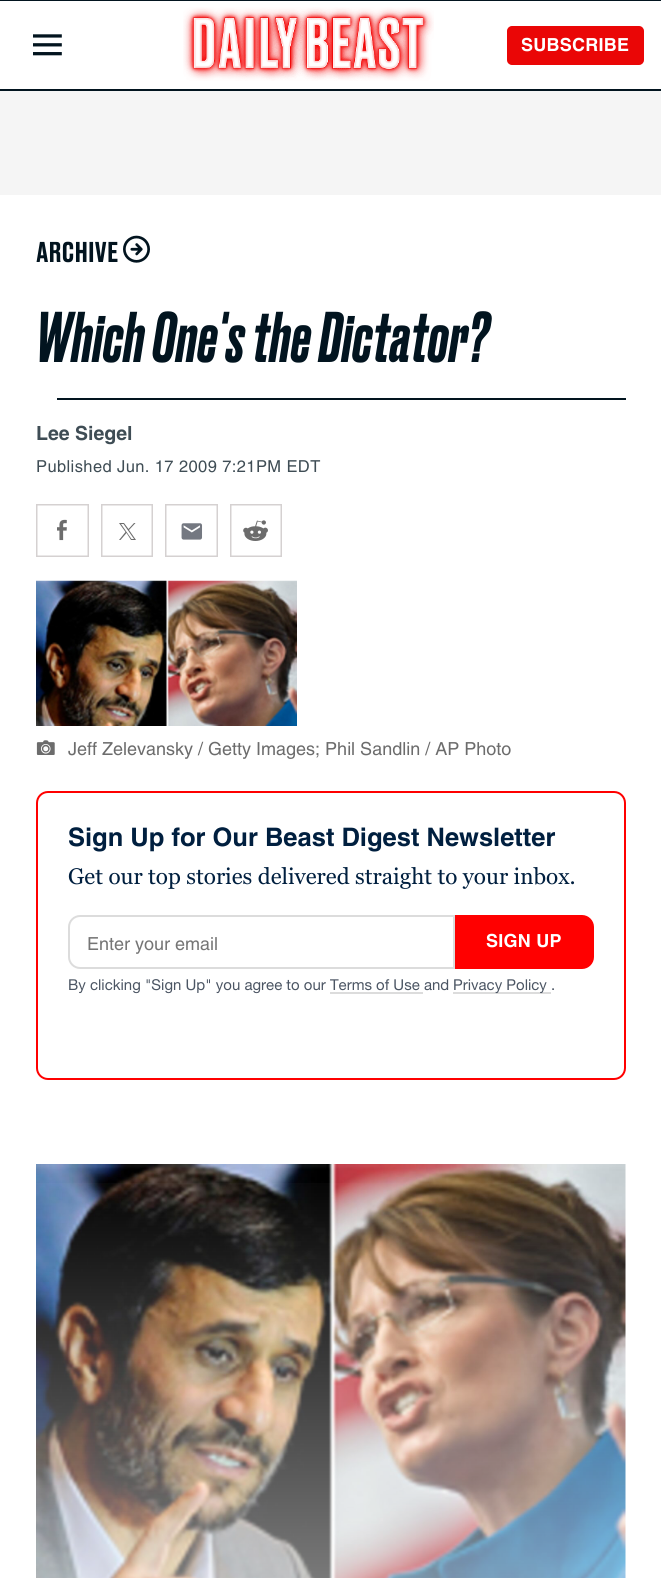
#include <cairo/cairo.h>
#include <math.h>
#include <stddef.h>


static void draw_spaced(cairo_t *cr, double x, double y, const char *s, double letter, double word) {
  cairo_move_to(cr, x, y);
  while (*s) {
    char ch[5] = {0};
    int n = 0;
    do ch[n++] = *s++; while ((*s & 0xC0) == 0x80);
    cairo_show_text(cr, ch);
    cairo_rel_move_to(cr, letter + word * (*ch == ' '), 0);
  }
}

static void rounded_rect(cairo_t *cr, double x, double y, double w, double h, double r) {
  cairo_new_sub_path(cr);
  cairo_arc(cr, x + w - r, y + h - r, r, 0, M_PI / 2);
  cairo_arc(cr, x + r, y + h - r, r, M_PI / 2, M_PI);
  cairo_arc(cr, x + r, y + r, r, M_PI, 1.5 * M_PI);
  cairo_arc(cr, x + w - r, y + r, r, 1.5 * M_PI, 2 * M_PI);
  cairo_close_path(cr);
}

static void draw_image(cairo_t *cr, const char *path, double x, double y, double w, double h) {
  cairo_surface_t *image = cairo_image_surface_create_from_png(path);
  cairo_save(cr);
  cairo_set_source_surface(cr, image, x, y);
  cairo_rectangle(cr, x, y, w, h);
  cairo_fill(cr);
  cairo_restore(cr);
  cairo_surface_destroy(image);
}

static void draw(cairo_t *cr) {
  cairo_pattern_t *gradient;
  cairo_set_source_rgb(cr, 1, 1, 1);
  cairo_paint(cr);
  cairo_set_source_rgb(cr, 2 / 255.0, 20 / 255.0, 31 / 255.0);
  cairo_rectangle(cr, 0, 0, 661, 1);
  cairo_fill(cr);
  cairo_rectangle(cr, 0, 89, 661, 2);
  cairo_fill(cr);
  draw_image(cr, "images/1.png", 33, 34, 29, 22);
  draw_image(cr, "images/2.png", 183, 7, 251, 74);
  cairo_set_source_rgb(cr, 234 / 255.0, 6 / 255.0, 6 / 255.0);
  rounded_rect(cr, 508, 27, 135, 37, 4);
  cairo_fill_preserve(cr);
  cairo_stroke(cr);
  cairo_set_source_rgb(cr, 245 / 255.0, 245 / 255.0, 245 / 255.0);
  cairo_rectangle(cr, 0, 91, 661, 104);
  cairo_fill(cr);
  draw_image(cr, "images/3.png", 123, 235, 27, 28);
  cairo_set_source_rgb(cr, 2 / 255.0, 20 / 255.0, 31 / 255.0);
  cairo_rectangle(cr, 57, 398, 569, 2);
  cairo_fill(cr);
  draw_image(cr, "images/4.png", 36, 504, 53, 53);
  cairo_rectangle(cr, 101.75, 504.75, 50.5, 51.5);
  cairo_set_source_rgb(cr, 213 / 255.0, 209 / 255.0, 209 / 255.0);
  cairo_set_line_width(cr, 1.5);
  cairo_stroke(cr);
  cairo_set_source_rgb(cr, 108 / 255.0, 108 / 255.0, 108 / 255.0);
  cairo_new_path(cr);
  cairo_move_to(cr, 129, 530);
  cairo_line_to(cr, 135.5, 523);
  cairo_line_to(cr, 134, 523);
  cairo_line_to(cr, 128.5, 529);
  cairo_line_to(cr, 124, 523);
  cairo_line_to(cr, 119, 523);
  cairo_line_to(cr, 125.5, 532);
  cairo_line_to(cr, 119, 540);
  cairo_line_to(cr, 120.5, 540);
  cairo_line_to(cr, 126.5, 533);
  cairo_line_to(cr, 131, 540);
  cairo_line_to(cr, 136, 540);
  cairo_move_to(cr, 121, 524);
  cairo_line_to(cr, 123.5, 524);
  cairo_line_to(cr, 134, 539);
  cairo_line_to(cr, 131.5, 539);
  cairo_fill(cr);
  draw_image(cr, "images/5.png", 165, 504, 53, 53);
  draw_image(cr, "images/6.png", 230, 504, 52, 53);
  draw_image(cr, "images/7.png", 36, 580, 261, 146);
  draw_image(cr, "images/8.png", 36, 740, 19, 15);
  rounded_rect(cr, 37, 792, 588, 287, 11);
  cairo_set_source_rgb(cr, 1, 0, 0);
  cairo_set_line_width(cr, 2);
  cairo_stroke(cr);
  cairo_new_path(cr);
  cairo_move_to(cr, 80, 916);
  cairo_line_to(cr, 454, 916);
  cairo_line_to(cr, 454, 968);
  cairo_line_to(cr, 80, 968);
  cairo_curve_to(cr, 74, 968, 69, 963, 69, 957);
  cairo_line_to(cr, 69, 927);
  cairo_curve_to(cr, 69, 921, 74, 916, 80, 916);
  cairo_close_path(cr);
  cairo_set_source_rgb(cr, 220 / 255.0, 220 / 255.0, 220 / 255.0);
  cairo_stroke(cr);
  cairo_set_source_rgb(cr, 1, 0, 0);
  cairo_new_path(cr);
  cairo_move_to(cr, 456, 916);
  cairo_line_to(cr, 582, 916);
  cairo_curve_to(cr, 588, 916, 593, 921, 593, 927);
  cairo_line_to(cr, 593, 957);
  cairo_curve_to(cr, 593, 963, 588, 968, 582, 968);
  cairo_line_to(cr, 456, 968);
  cairo_close_path(cr);
  cairo_fill_preserve(cr);
  cairo_stroke(cr);
  cairo_set_source_rgb(cr, 220 / 255.0, 220 / 255.0, 220 / 255.0);
  cairo_rectangle(cr, 453, 992, 98, 2);
  cairo_fill(cr);
  draw_image(cr, "images/9.png", 36, 1164, 590, 414);
  gradient = cairo_pattern_create_linear(331, 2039, 331, 1164);
  cairo_pattern_add_color_stop_rgba(gradient, 0, 1, 1, 1, 1);
  cairo_pattern_add_color_stop_rgba(gradient, 1, 1, 1, 1, 0);
  cairo_set_source(cr, gradient);
  cairo_pattern_destroy(gradient);
  cairo_rectangle(cr, 36, 1183, 590, 395);
  cairo_fill(cr);
  cairo_select_font_face(cr, "Helvetica", CAIRO_FONT_SLANT_NORMAL, CAIRO_FONT_WEIGHT_BOLD);
  cairo_set_font_size(cr, 18);
  cairo_set_source_rgb(cr, 1, 1, 1);
  draw_spaced(cr, 521, 51, "SUBSCRIBE", 0.25, 0);
  cairo_select_font_face(cr, "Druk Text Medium", CAIRO_FONT_SLANT_NORMAL, CAIRO_FONT_WEIGHT_NORMAL);
  cairo_set_font_size(cr, 27);
  cairo_set_source_rgb(cr, 2 / 255.0, 20 / 255.0, 31 / 255.0);
  cairo_move_to(cr, 36, 262);
  cairo_show_text(cr, "ARCHIVE");
  cairo_select_font_face(cr, "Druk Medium", CAIRO_FONT_SLANT_ITALIC, CAIRO_FONT_WEIGHT_NORMAL);
  cairo_set_font_size(cr, 67.5);
  draw_spaced(cr, 36, 362, "Which One's the Dictator?", 0.75, 0);
  cairo_select_font_face(cr, "Helvetica", CAIRO_FONT_SLANT_NORMAL, CAIRO_FONT_WEIGHT_BOLD);
  cairo_set_font_size(cr, 19.5);
  cairo_set_source_rgb(cr, 63 / 255.0, 77 / 255.0, 85 / 255.0);
  cairo_move_to(cr, 36, 440);
  cairo_show_text(cr, "Lee Siegel");
  cairo_select_font_face(cr, "Helvetica", CAIRO_FONT_SLANT_NORMAL, CAIRO_FONT_WEIGHT_NORMAL);
  cairo_set_font_size(cr, 16.5);
  draw_spaced(cr, 36, 472, "Published Jun. 17 2009 7:21PM EDT", 0.4, 0);
  cairo_set_font_size(cr, 18);
  cairo_set_source_rgb(cr, 108 / 255.0, 108 / 255.0, 108 / 255.0);
  cairo_move_to(cr, 68, 755);
  cairo_show_text(cr, "Jeff Zelevansky / Getty Images; Phil Sandlin / AP Photo");
  cairo_select_font_face(cr, "Helvetica", CAIRO_FONT_SLANT_NORMAL, CAIRO_FONT_WEIGHT_BOLD);
  cairo_set_font_size(cr, 25.5);
  cairo_set_source_rgb(cr, 0, 31 / 255.0, 63 / 255.0);
  cairo_move_to(cr, 68, 846);
  cairo_show_text(cr, "Sign Up for Our Beast Digest Newsletter");
  cairo_select_font_face(cr, "Georgia", CAIRO_FONT_SLANT_NORMAL, CAIRO_FONT_WEIGHT_NORMAL);
  cairo_set_font_size(cr, 22.5);
  cairo_move_to(cr, 68, 884);
  cairo_show_text(cr, "Get our top stories delivered straight to your inbox.");
  cairo_select_font_face(cr, "Helvetica", CAIRO_FONT_SLANT_NORMAL, CAIRO_FONT_WEIGHT_NORMAL);
  cairo_set_font_size(cr, 18);
  cairo_set_source_rgb(cr, 117 / 255.0, 117 / 255.0, 117 / 255.0);
  cairo_move_to(cr, 87, 950);
  cairo_show_text(cr, "Enter your email");
  cairo_select_font_face(cr, "Helvetica", CAIRO_FONT_SLANT_NORMAL, CAIRO_FONT_WEIGHT_BOLD);
  cairo_set_source_rgb(cr, 1, 1, 1);
  draw_spaced(cr, 486, 947, "SIGN UP", 0.25, 0);
  cairo_select_font_face(cr, "Helvetica Neue", CAIRO_FONT_SLANT_NORMAL, CAIRO_FONT_WEIGHT_NORMAL);
  cairo_set_font_size(cr, 15);
  cairo_set_source_rgb(cr, 75 / 255.0, 85 / 255.0, 99 / 255.0);
  cairo_move_to(cr, 68, 990);
  cairo_show_text(cr, "By clicking \"Sign Up\" you agree to our Terms of Use and");
  cairo_move_to(cr, 453, 990);
  cairo_show_text(cr, "Privacy Policy .");
  cairo_set_source_rgb(cr, 220 / 255.0, 220 / 255.0, 220 / 255.0);
  cairo_rectangle(cr, 330, 992, 93, 2);
  cairo_fill(cr);
}

int main(void) {
  cairo_surface_t *surface = cairo_image_surface_create(CAIRO_FORMAT_RGB24, 661, 1578);
  cairo_t *cr = cairo_create(surface);
  cairo_font_options_t *options = cairo_font_options_create();
  cairo_font_options_set_hint_metrics(options, CAIRO_HINT_METRICS_OFF);
  cairo_font_options_set_hint_style(options, CAIRO_HINT_STYLE_NONE);
  cairo_set_font_options(cr, options);
  cairo_set_miter_limit(cr, 4);
  draw(cr);
  cairo_surface_write_to_png(surface, "out.png");
  cairo_font_options_destroy(options);
  cairo_destroy(cr);
  cairo_surface_destroy(surface);
  return 0;
}
